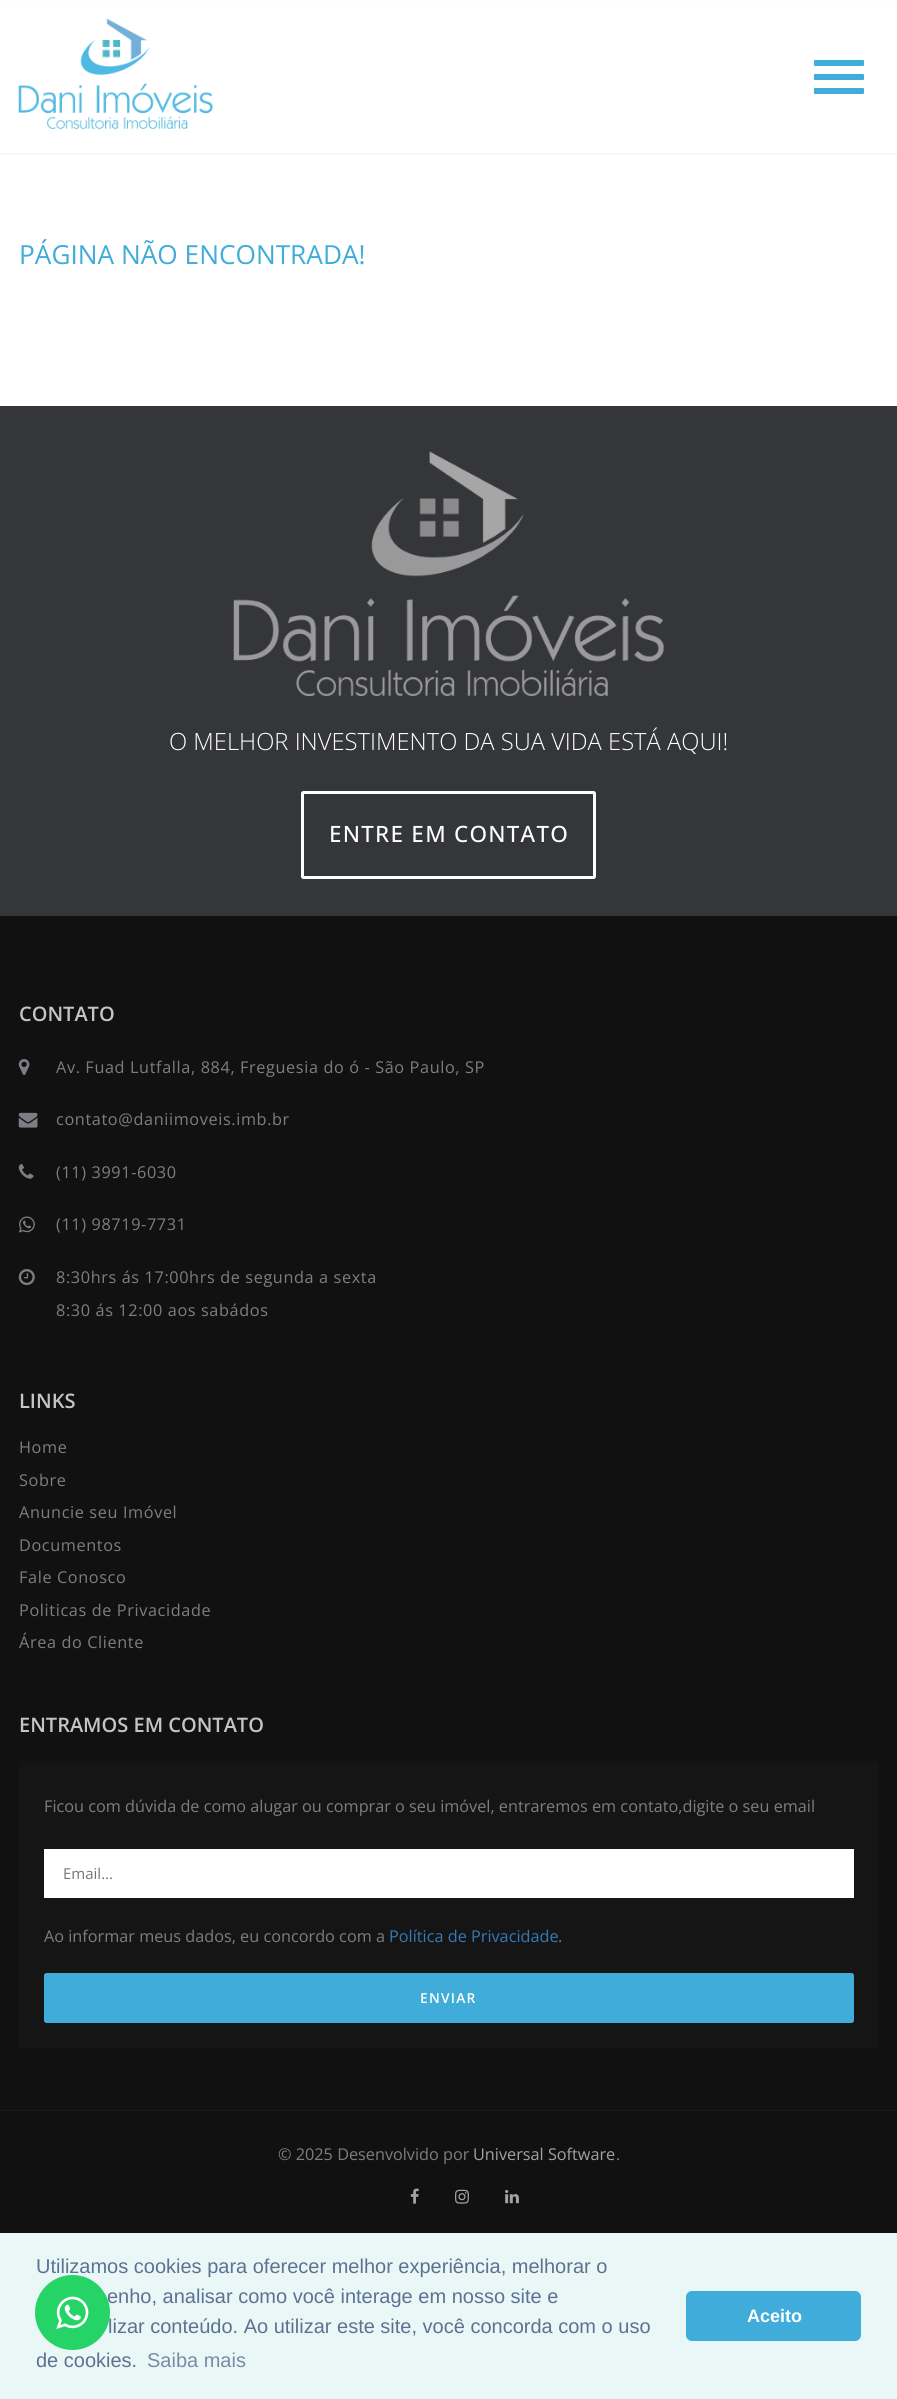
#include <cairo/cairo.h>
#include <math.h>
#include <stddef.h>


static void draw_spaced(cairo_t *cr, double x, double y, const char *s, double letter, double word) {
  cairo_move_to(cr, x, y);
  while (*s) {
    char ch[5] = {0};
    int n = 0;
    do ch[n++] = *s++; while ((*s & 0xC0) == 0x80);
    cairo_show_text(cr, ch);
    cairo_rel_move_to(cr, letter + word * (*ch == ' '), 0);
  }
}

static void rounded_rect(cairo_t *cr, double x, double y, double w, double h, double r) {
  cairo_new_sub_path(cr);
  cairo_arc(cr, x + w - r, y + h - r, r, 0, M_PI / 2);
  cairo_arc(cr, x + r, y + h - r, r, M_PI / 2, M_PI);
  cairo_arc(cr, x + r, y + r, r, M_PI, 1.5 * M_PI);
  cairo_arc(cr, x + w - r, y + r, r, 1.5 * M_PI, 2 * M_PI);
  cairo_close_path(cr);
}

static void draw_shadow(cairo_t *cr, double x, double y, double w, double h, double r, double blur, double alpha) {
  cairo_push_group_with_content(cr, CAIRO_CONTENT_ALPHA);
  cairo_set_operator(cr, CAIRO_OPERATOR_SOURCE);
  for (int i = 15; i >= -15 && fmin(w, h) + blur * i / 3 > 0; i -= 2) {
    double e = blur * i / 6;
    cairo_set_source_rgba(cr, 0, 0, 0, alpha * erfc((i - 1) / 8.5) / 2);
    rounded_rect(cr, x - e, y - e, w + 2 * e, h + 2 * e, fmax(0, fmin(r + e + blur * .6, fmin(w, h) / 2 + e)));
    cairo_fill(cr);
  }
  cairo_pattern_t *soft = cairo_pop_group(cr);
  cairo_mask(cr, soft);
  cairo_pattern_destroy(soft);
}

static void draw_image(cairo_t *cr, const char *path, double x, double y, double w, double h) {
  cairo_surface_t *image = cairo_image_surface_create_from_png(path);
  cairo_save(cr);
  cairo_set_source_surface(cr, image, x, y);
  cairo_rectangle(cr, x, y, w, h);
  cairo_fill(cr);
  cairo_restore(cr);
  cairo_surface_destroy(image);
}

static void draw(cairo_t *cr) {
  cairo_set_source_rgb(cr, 1, 1, 1);
  cairo_paint(cr);
  cairo_set_source_rgb(cr, 0, 0, 0);
  draw_shadow(cr, 0, 1, 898, 153, 0, 0.5, 0.05);
  cairo_set_source_rgb(cr, 1, 1, 1);
  cairo_rectangle(cr, 0, 1, 897, 152);
  cairo_fill(cr);
  draw_image(cr, "images/1.png", 18, 18, 195, 111);
  cairo_set_source_rgb(cr, 63 / 255.0, 172 / 255.0, 217 / 255.0);
  rounded_rect(cr, 814, 60, 50, 6, 1);
  cairo_fill(cr);
  rounded_rect(cr, 814, 74, 50, 6, 1);
  cairo_fill(cr);
  rounded_rect(cr, 814, 88, 50, 6, 1);
  cairo_fill(cr);
  cairo_set_source_rgb(cr, 53 / 255.0, 54 / 255.0, 58 / 255.0);
  cairo_rectangle(cr, 0, 406, 897, 510);
  cairo_fill(cr);
  draw_image(cr, "images/2.png", 233, 451, 431, 245);
  rounded_rect(cr, 302.5, 792.5, 292, 85, 1);
  cairo_set_source_rgb(cr, 1, 1, 1);
  cairo_set_line_width(cr, 3);
  cairo_stroke(cr);
  cairo_set_source_rgb(cr, 17 / 255.0, 17 / 255.0, 17 / 255.0);
  cairo_rectangle(cr, 0, 916, 897, 1194);
  cairo_fill(cr);
  draw_image(cr, "images/3.png", 18, 1059, 12, 16);
  draw_image(cr, "images/4.png", 18, 1112, 20, 16);
  draw_image(cr, "images/5.png", 18, 1164, 16, 15);
  draw_image(cr, "images/6.png", 18, 1216, 17, 17);
  draw_image(cr, "images/7.png", 18, 1269, 17, 17);
  cairo_set_source_rgb(cr, 21 / 255.0, 21 / 255.0, 21 / 255.0);
  rounded_rect(cr, 19, 1761, 860, 287, 2.5);
  cairo_fill(cr);
  cairo_set_source_rgb(cr, 1, 1, 1);
  cairo_rectangle(cr, 44, 1849, 810, 49);
  cairo_fill(cr);
  cairo_set_source_rgb(cr, 63 / 255.0, 172 / 255.0, 217 / 255.0);
  rounded_rect(cr, 45.5, 1974.5, 807, 47, 1);
  cairo_fill_preserve(cr);
  cairo_stroke(cr);
  cairo_set_source_rgb(cr, 17 / 255.0, 17 / 255.0, 17 / 255.0);
  cairo_rectangle(cr, 0, 2111, 897, 122);
  cairo_fill(cr);
  cairo_set_source_rgb(cr, 27 / 255.0, 27 / 255.0, 27 / 255.0);
  cairo_rectangle(cr, 0, 2110, 897, 1);
  cairo_fill(cr);
  draw_image(cr, "images/8.png", 410, 2188, 9, 16);
  draw_image(cr, "images/9.png", 455, 2189, 14, 15);
  draw_image(cr, "images/10.png", 505, 2189, 14, 15);
  cairo_set_source_rgb(cr, 234 / 255.0, 247 / 255.0, 247 / 255.0);
  cairo_rectangle(cr, 0, 2233, 897, 166);
  cairo_fill(cr);
  cairo_set_source_rgb(cr, 63 / 255.0, 172 / 255.0, 217 / 255.0);
  rounded_rect(cr, 686, 2291, 175, 50, 6);
  cairo_fill(cr);
  cairo_select_font_face(cr, "Open Sans", CAIRO_FONT_SLANT_NORMAL, CAIRO_FONT_WEIGHT_NORMAL);
  cairo_set_font_size(cr, 26.25);
  cairo_move_to(cr, 19, 264);
  cairo_show_text(cr, "PÁGINA NÃO ENCONTRADA!");
  cairo_select_font_face(cr, "Open Sans Light", CAIRO_FONT_SLANT_NORMAL, CAIRO_FONT_WEIGHT_NORMAL);
  cairo_set_font_size(cr, 23.75);
  cairo_set_source_rgb(cr, 1, 1, 1);
  cairo_move_to(cr, 169, 750);
  cairo_show_text(cr, "O MELHOR INVESTIMENTO DA SUA VIDA ESTÁ AQUI!");
  cairo_select_font_face(cr, "Open Sans Medium", CAIRO_FONT_SLANT_NORMAL, CAIRO_FONT_WEIGHT_NORMAL);
  cairo_set_font_size(cr, 22.5);
  draw_spaced(cr, 329, 842, "ENTRE EM CONTATO", 1.25, 0);
  cairo_select_font_face(cr, "Open Sans SemiBold", CAIRO_FONT_SLANT_NORMAL, CAIRO_FONT_WEIGHT_NORMAL);
  cairo_set_font_size(cr, 20);
  cairo_set_source_rgb(cr, 197 / 255.0, 197 / 255.0, 197 / 255.0);
  cairo_move_to(cr, 19, 1021);
  cairo_show_text(cr, "CONTATO");
  cairo_select_font_face(cr, "Open Sans", CAIRO_FONT_SLANT_NORMAL, CAIRO_FONT_WEIGHT_NORMAL);
  cairo_set_font_size(cr, 16.25);
  cairo_set_source_rgb(cr, 124 / 255.0, 126 / 255.0, 131 / 255.0);
  draw_spaced(cr, 56, 1073, "Av. Fuad Lutfalla, 884, Freguesia do ó - São Paulo, SP", 0.62, 0);
  draw_spaced(cr, 56, 1125, "contato@daniimoveis.imb.br", 0.62, 0);
  draw_spaced(cr, 56, 1178, "(11) 3991-6030", 0.62, 0);
  draw_spaced(cr, 56, 1230, "(11) 98719-7731", 0.62, 0);
  draw_spaced(cr, 56, 1283, "8:30hrs ás 17:00hrs de segunda a sexta", 0.62, 0);
  draw_spaced(cr, 56, 1316, "8:30 ás 12:00 aos sabádos", 0.62, 0);
  cairo_select_font_face(cr, "Open Sans SemiBold", CAIRO_FONT_SLANT_NORMAL, CAIRO_FONT_WEIGHT_NORMAL);
  cairo_set_font_size(cr, 20);
  cairo_set_source_rgb(cr, 197 / 255.0, 197 / 255.0, 197 / 255.0);
  cairo_move_to(cr, 19, 1408);
  cairo_show_text(cr, "LINKS");
  cairo_select_font_face(cr, "Open Sans", CAIRO_FONT_SLANT_NORMAL, CAIRO_FONT_WEIGHT_NORMAL);
  cairo_set_font_size(cr, 16.25);
  cairo_set_source_rgb(cr, 124 / 255.0, 126 / 255.0, 131 / 255.0);
  draw_spaced(cr, 19, 1453, "Home", 0.62, 0);
  draw_spaced(cr, 19, 1486, "Sobre", 0.62, 0);
  draw_spaced(cr, 19, 1518, "Anuncie seu Imóvel", 0.62, 0);
  draw_spaced(cr, 19, 1551, "Documentos", 0.62, 0);
  draw_spaced(cr, 19, 1583, "Fale Conosco", 0.62, 0);
  draw_spaced(cr, 19, 1616, "Politicas de Privacidade", 0.62, 0);
  draw_spaced(cr, 19, 1648, "Área do Cliente", 0.62, 0);
  cairo_select_font_face(cr, "Open Sans SemiBold", CAIRO_FONT_SLANT_NORMAL, CAIRO_FONT_WEIGHT_NORMAL);
  cairo_set_font_size(cr, 20);
  cairo_set_source_rgb(cr, 197 / 255.0, 197 / 255.0, 197 / 255.0);
  cairo_move_to(cr, 19, 1732);
  cairo_show_text(cr, "ENTRAMOS EM CONTATO");
  cairo_select_font_face(cr, "Open Sans", CAIRO_FONT_SLANT_NORMAL, CAIRO_FONT_WEIGHT_NORMAL);
  cairo_set_font_size(cr, 16.25);
  cairo_set_source_rgb(cr, 124 / 255.0, 126 / 255.0, 131 / 255.0);
  cairo_move_to(cr, 44, 1812);
  cairo_show_text(cr, "Ficou com dúvida de como alugar ou comprar o seu imóvel, entraremos em contato,digite o seu email");
  cairo_set_font_size(cr, 15);
  cairo_set_source_rgb(cr, 117 / 255.0, 117 / 255.0, 117 / 255.0);
  cairo_move_to(cr, 63, 1879);
  cairo_show_text(cr, "Email...");
  cairo_set_font_size(cr, 16.25);
  cairo_set_source_rgb(cr, 124 / 255.0, 126 / 255.0, 131 / 255.0);
  cairo_move_to(cr, 44, 1942);
  cairo_show_text(cr, "Ao informar meus dados, eu concordo com a");
  cairo_set_source_rgb(cr, 51 / 255.0, 122 / 255.0, 183 / 255.0);
  cairo_move_to(cr, 389, 1942);
  cairo_show_text(cr, "Política de Privacidade");
  cairo_set_source_rgb(cr, 124 / 255.0, 126 / 255.0, 131 / 255.0);
  cairo_move_to(cr, 558, 1942);
  cairo_show_text(cr, ".");
  cairo_select_font_face(cr, "Open Sans SemiBold", CAIRO_FONT_SLANT_NORMAL, CAIRO_FONT_WEIGHT_NORMAL);
  cairo_set_font_size(cr, 13.75);
  cairo_set_source_rgb(cr, 1, 1, 1);
  draw_spaced(cr, 420, 2003, "ENVIAR", 1.25, 0);
  cairo_select_font_face(cr, "Open Sans", CAIRO_FONT_SLANT_NORMAL, CAIRO_FONT_WEIGHT_NORMAL);
  cairo_set_font_size(cr, 16.25);
  cairo_set_source_rgb(cr, 124 / 255.0, 126 / 255.0, 131 / 255.0);
  cairo_move_to(cr, 278, 2160);
  cairo_show_text(cr, "© 2025 Desenvolvido por");
  cairo_set_source_rgb(cr, 163 / 255.0, 163 / 255.0, 163 / 255.0);
  cairo_move_to(cr, 473, 2160);
  cairo_show_text(cr, "Universal Software");
  cairo_set_source_rgb(cr, 124 / 255.0, 126 / 255.0, 131 / 255.0);
  cairo_move_to(cr, 616, 2160);
  cairo_show_text(cr, ".");
  cairo_select_font_face(cr, "Liberation Sans", CAIRO_FONT_SLANT_NORMAL, CAIRO_FONT_WEIGHT_NORMAL);
  cairo_set_font_size(cr, 20);
  cairo_set_source_rgb(cr, 92 / 255.0, 114 / 255.0, 145 / 255.0);
  cairo_move_to(cr, 36, 2273);
  cairo_show_text(cr, "Utilizamos cookies para oferecer melhor experiência, melhorar o");
  cairo_move_to(cr, 107, 2303);
  cairo_show_text(cr, "enho, analisar como você interage em nosso site e");
  cairo_move_to(cr, 108, 2333);
  cairo_show_text(cr, "lizar conteúdo. Ao utilizar este site, você concorda com o uso");
  cairo_move_to(cr, 36, 2367);
  cairo_show_text(cr, "de cookies.");
  cairo_set_source_rgb(cr, 120 / 255.0, 141 / 255.0, 165 / 255.0);
  cairo_move_to(cr, 147, 2367);
  cairo_show_text(cr, "Saiba mais");
  cairo_select_font_face(cr, "Liberation Sans", CAIRO_FONT_SLANT_NORMAL, CAIRO_FONT_WEIGHT_BOLD);
  cairo_set_font_size(cr, 18);
  cairo_set_source_rgb(cr, 1, 1, 1);
  cairo_move_to(cr, 747, 2322);
  cairo_show_text(cr, "Aceito");
  cairo_set_source_rgb(cr, 37 / 255.0, 211 / 255.0, 102 / 255.0);
  cairo_new_path(cr);
  cairo_arc(cr, 72.5, 2312.5, 37.5, 0, 2 * M_PI);
  cairo_fill(cr);
  draw_image(cr, "images/11.png", 56, 2296, 33, 33);
}

int main(void) {
  cairo_surface_t *surface = cairo_image_surface_create(CAIRO_FORMAT_RGB24, 897, 2399);
  cairo_t *cr = cairo_create(surface);
  cairo_font_options_t *options = cairo_font_options_create();
  cairo_font_options_set_hint_metrics(options, CAIRO_HINT_METRICS_OFF);
  cairo_font_options_set_hint_style(options, CAIRO_HINT_STYLE_NONE);
  cairo_set_font_options(cr, options);
  cairo_set_miter_limit(cr, 4);
  draw(cr);
  cairo_surface_write_to_png(surface, "out.png");
  cairo_font_options_destroy(options);
  cairo_destroy(cr);
  cairo_surface_destroy(surface);
  return 0;
}
